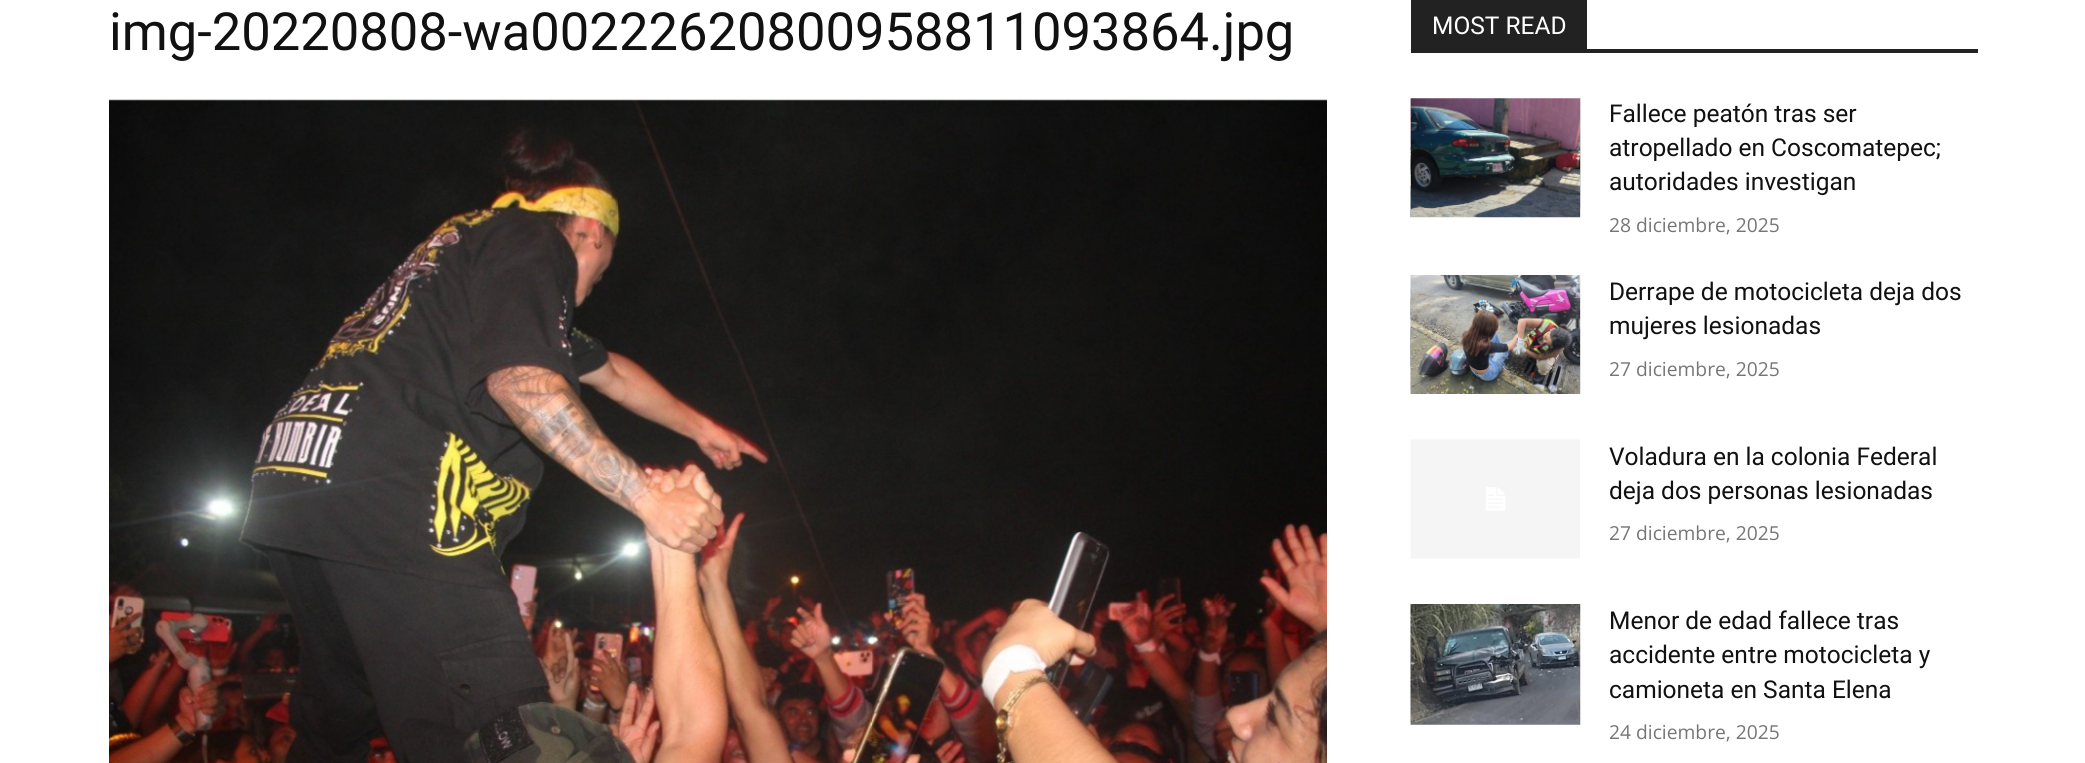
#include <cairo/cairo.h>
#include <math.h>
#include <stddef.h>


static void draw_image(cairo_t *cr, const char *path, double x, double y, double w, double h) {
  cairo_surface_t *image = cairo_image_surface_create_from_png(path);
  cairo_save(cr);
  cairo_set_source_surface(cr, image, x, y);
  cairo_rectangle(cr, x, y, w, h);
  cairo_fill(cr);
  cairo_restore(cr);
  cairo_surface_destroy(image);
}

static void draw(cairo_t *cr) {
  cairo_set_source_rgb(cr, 1, 1, 1);
  cairo_paint(cr);
  draw_image(cr, "images/1.png", 109, 99, 1218, 664);
  cairo_set_source_rgb(cr, 34 / 255.0, 34 / 255.0, 34 / 255.0);
  cairo_rectangle(cr, 1411, 49, 567, 4);
  cairo_fill(cr);
  cairo_rectangle(cr, 1411, 0, 176, 49);
  cairo_fill(cr);
  draw_image(cr, "images/2.png", 1410, 98, 171, 120);
  draw_image(cr, "images/3.png", 1410, 275, 171, 119);
  draw_image(cr, "images/4.png", 1410, 439, 170, 120);
  draw_image(cr, "images/5.png", 1410, 604, 171, 121);
  cairo_select_font_face(cr, "Roboto", CAIRO_FONT_SLANT_NORMAL, CAIRO_FONT_WEIGHT_NORMAL);
  cairo_set_font_size(cr, 52.5);
  cairo_set_source_rgb(cr, 17 / 255.0, 17 / 255.0, 17 / 255.0);
  cairo_move_to(cr, 109, 50);
  cairo_show_text(cr, "img-20220808-wa00222620800958811093864.jpg");
  cairo_set_font_size(cr, 24.5);
  cairo_set_source_rgb(cr, 1, 1, 1);
  cairo_move_to(cr, 1432, 34);
  cairo_show_text(cr, "MOST READ");
  cairo_set_source_rgb(cr, 17 / 255.0, 17 / 255.0, 17 / 255.0);
  cairo_move_to(cr, 1609, 122);
  cairo_show_text(cr, "Fallece peatón tras ser");
  cairo_move_to(cr, 1609, 156);
  cairo_show_text(cr, "atropellado en Coscomatepec;");
  cairo_move_to(cr, 1609, 190);
  cairo_show_text(cr, "autoridades investigan");
  cairo_select_font_face(cr, "Open Sans", CAIRO_FONT_SLANT_NORMAL, CAIRO_FONT_WEIGHT_NORMAL);
  cairo_set_font_size(cr, 19.25);
  cairo_set_source_rgb(cr, 118 / 255.0, 118 / 255.0, 118 / 255.0);
  cairo_move_to(cr, 1609, 232);
  cairo_show_text(cr, "28 diciembre, 2025");
  cairo_select_font_face(cr, "Roboto", CAIRO_FONT_SLANT_NORMAL, CAIRO_FONT_WEIGHT_NORMAL);
  cairo_set_font_size(cr, 24.5);
  cairo_set_source_rgb(cr, 17 / 255.0, 17 / 255.0, 17 / 255.0);
  cairo_move_to(cr, 1609, 300);
  cairo_show_text(cr, "Derrape de motocicleta deja dos");
  cairo_move_to(cr, 1609, 334);
  cairo_show_text(cr, "mujeres lesionadas");
  cairo_select_font_face(cr, "Open Sans", CAIRO_FONT_SLANT_NORMAL, CAIRO_FONT_WEIGHT_NORMAL);
  cairo_set_font_size(cr, 19.25);
  cairo_set_source_rgb(cr, 118 / 255.0, 118 / 255.0, 118 / 255.0);
  cairo_move_to(cr, 1609, 376);
  cairo_show_text(cr, "27 diciembre, 2025");
  cairo_select_font_face(cr, "Roboto", CAIRO_FONT_SLANT_NORMAL, CAIRO_FONT_WEIGHT_NORMAL);
  cairo_set_font_size(cr, 24.5);
  cairo_set_source_rgb(cr, 17 / 255.0, 17 / 255.0, 17 / 255.0);
  cairo_move_to(cr, 1609, 465);
  cairo_show_text(cr, "Voladura en la colonia Federal");
  cairo_move_to(cr, 1609, 499);
  cairo_show_text(cr, "deja dos personas lesionadas");
  cairo_select_font_face(cr, "Open Sans", CAIRO_FONT_SLANT_NORMAL, CAIRO_FONT_WEIGHT_NORMAL);
  cairo_set_font_size(cr, 19.25);
  cairo_set_source_rgb(cr, 118 / 255.0, 118 / 255.0, 118 / 255.0);
  cairo_move_to(cr, 1609, 540);
  cairo_show_text(cr, "27 diciembre, 2025");
  cairo_select_font_face(cr, "Roboto", CAIRO_FONT_SLANT_NORMAL, CAIRO_FONT_WEIGHT_NORMAL);
  cairo_set_font_size(cr, 24.5);
  cairo_set_source_rgb(cr, 17 / 255.0, 17 / 255.0, 17 / 255.0);
  cairo_move_to(cr, 1609, 629);
  cairo_show_text(cr, "Menor de edad fallece tras");
  cairo_move_to(cr, 1609, 663);
  cairo_show_text(cr, "accidente entre motocicleta y");
  cairo_move_to(cr, 1609, 698);
  cairo_show_text(cr, "camioneta en Santa Elena");
  cairo_select_font_face(cr, "Open Sans", CAIRO_FONT_SLANT_NORMAL, CAIRO_FONT_WEIGHT_NORMAL);
  cairo_set_font_size(cr, 19.25);
  cairo_set_source_rgb(cr, 118 / 255.0, 118 / 255.0, 118 / 255.0);
  cairo_move_to(cr, 1609, 739);
  cairo_show_text(cr, "24 diciembre, 2025");
}

int main(void) {
  cairo_surface_t *surface = cairo_image_surface_create(CAIRO_FORMAT_RGB24, 2085, 763);
  cairo_t *cr = cairo_create(surface);
  cairo_font_options_t *options = cairo_font_options_create();
  cairo_font_options_set_hint_metrics(options, CAIRO_HINT_METRICS_OFF);
  cairo_font_options_set_hint_style(options, CAIRO_HINT_STYLE_NONE);
  cairo_set_font_options(cr, options);
  cairo_set_miter_limit(cr, 4);
  draw(cr);
  cairo_surface_write_to_png(surface, "out.png");
  cairo_font_options_destroy(options);
  cairo_destroy(cr);
  cairo_surface_destroy(surface);
  return 0;
}
